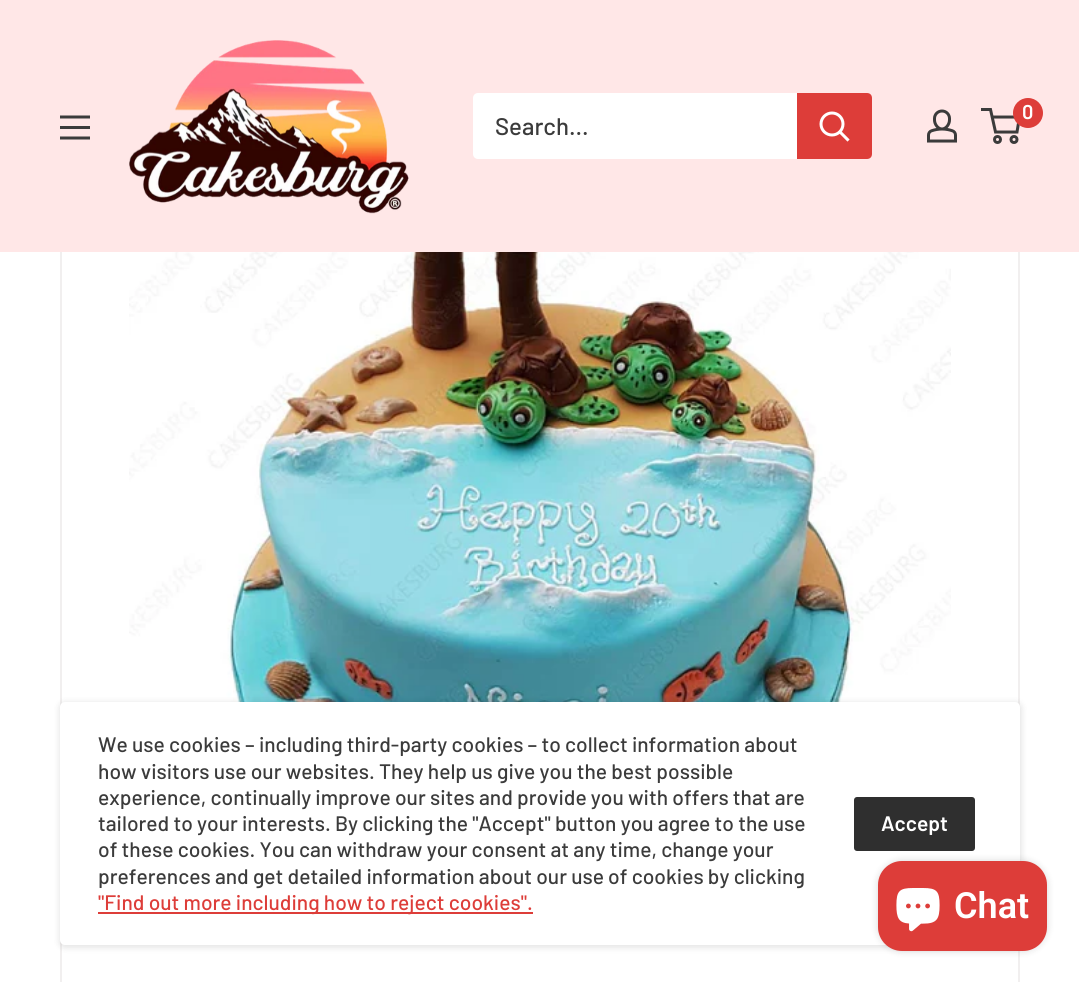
#include <cairo/cairo.h>
#include <math.h>
#include <stddef.h>


static void rounded_rect(cairo_t *cr, double x, double y, double w, double h, double r) {
  cairo_new_sub_path(cr);
  cairo_arc(cr, x + w - r, y + h - r, r, 0, M_PI / 2);
  cairo_arc(cr, x + r, y + h - r, r, M_PI / 2, M_PI);
  cairo_arc(cr, x + r, y + r, r, M_PI, 1.5 * M_PI);
  cairo_arc(cr, x + w - r, y + r, r, 1.5 * M_PI, 2 * M_PI);
  cairo_close_path(cr);
}

static void draw_shadow(cairo_t *cr, double x, double y, double w, double h, double r, double blur, double alpha) {
  cairo_push_group_with_content(cr, CAIRO_CONTENT_ALPHA);
  cairo_set_operator(cr, CAIRO_OPERATOR_SOURCE);
  for (int i = 15; i >= -15 && fmin(w, h) + blur * i / 3 > 0; i -= 2) {
    double e = blur * i / 6;
    cairo_set_source_rgba(cr, 0, 0, 0, alpha * erfc((i - 1) / 8.5) / 2);
    rounded_rect(cr, x - e, y - e, w + 2 * e, h + 2 * e, fmax(0, fmin(r + e + blur * .6, fmin(w, h) / 2 + e)));
    cairo_fill(cr);
  }
  cairo_pattern_t *soft = cairo_pop_group(cr);
  cairo_mask(cr, soft);
  cairo_pattern_destroy(soft);
}

static void draw_image(cairo_t *cr, const char *path, double x, double y, double w, double h) {
  cairo_surface_t *image = cairo_image_surface_create_from_png(path);
  cairo_save(cr);
  cairo_set_source_surface(cr, image, x, y);
  cairo_rectangle(cr, x, y, w, h);
  cairo_fill(cr);
  cairo_restore(cr);
  cairo_surface_destroy(image);
}

static void draw(cairo_t *cr) {
  cairo_set_source_rgb(cr, 1, 1, 1);
  cairo_paint(cr);
  cairo_rectangle(cr, 61, 42, 958, 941);
  cairo_set_source_rgb(cr, 241 / 255.0, 239 / 255.0, 239 / 255.0);
  cairo_stroke(cr);
  draw_image(cr, "images/1.png", 129, 252, 822, 450);
  cairo_set_source_rgb(cr, 1, 231 / 255.0, 231 / 255.0);
  cairo_rectangle(cr, 0, 0, 1079, 252);
  cairo_fill(cr);
  draw_image(cr, "images/2.png", 129, 40, 280, 174);
  draw_image(cr, "images/3.png", 927, 109, 30, 34);
  cairo_arc(cr, 997.5, 139.5, 3, 0, 2 * M_PI);
  cairo_set_source_rgb(cr, 59 / 255.0, 59 / 255.0, 59 / 255.0);
  cairo_set_line_width(cr, 3);
  cairo_stroke(cr);
  cairo_arc(cr, 1014, 139.5, 3, 0, 2 * M_PI);
  cairo_stroke(cr);
  cairo_new_path(cr);
  cairo_move_to(cr, 992, 117);
  cairo_line_to(cr, 1019.5, 117);
  cairo_line_to(cr, 1017, 132);
  cairo_line_to(cr, 995.5, 132);
  cairo_line_to(cr, 990.5, 109.5);
  cairo_line_to(cr, 981, 109.5);
  cairo_stroke(cr);
  cairo_set_source_rgb(cr, 221 / 255.0, 61 / 255.0, 57 / 255.0);
  cairo_arc(cr, 1028, 113, 15, 0, 2 * M_PI);
  cairo_fill(cr);
  draw_image(cr, "images/4.png", 60, 115, 30, 25);
  cairo_set_source_rgb(cr, 1, 1, 1);
  rounded_rect(cr, 473, 93, 399, 66, 5);
  cairo_fill(cr);
  cairo_set_source_rgb(cr, 221 / 255.0, 61 / 255.0, 57 / 255.0);
  cairo_new_path(cr);
  cairo_move_to(cr, 797, 93);
  cairo_line_to(cr, 867, 93);
  cairo_curve_to(cr, 870, 93, 872, 95, 872, 98);
  cairo_line_to(cr, 872, 154);
  cairo_curve_to(cr, 872, 157, 870, 159, 867, 159);
  cairo_line_to(cr, 797, 159);
  cairo_close_path(cr);
  cairo_fill(cr);
  cairo_new_path(cr);
  cairo_move_to(cr, 847.5, 139.5);
  cairo_line_to(cr, 840, 132);
  cairo_set_source_rgb(cr, 1, 1, 1);
  cairo_set_line_cap(cr, CAIRO_LINE_CAP_SQUARE);
  cairo_stroke(cr);
  cairo_arc(cr, 832, 124, 11, 0, 2 * M_PI);
  cairo_set_line_cap(cr, CAIRO_LINE_CAP_BUTT);
  cairo_stroke(cr);
  cairo_set_source_rgb(cr, 0, 0, 0);
  draw_shadow(cr, 59, 702, 963, 246, 6, 3, 0.1);
  cairo_set_source_rgb(cr, 1, 1, 1);
  rounded_rect(cr, 60, 702, 960, 243, 5);
  cairo_fill(cr);
  cairo_set_source_rgb(cr, 221 / 255.0, 61 / 255.0, 57 / 255.0);
  cairo_rectangle(cr, 98, 912, 435, 2);
  cairo_fill(cr);
  cairo_set_source_rgb(cr, 47 / 255.0, 47 / 255.0, 47 / 255.0);
  rounded_rect(cr, 854, 797, 121, 54, 3);
  cairo_fill(cr);
  cairo_set_source_rgb(cr, 0, 0, 0);
  draw_shadow(cr, 878, 861, 169, 90, 24, 4, 0.15);
  cairo_set_source_rgb(cr, 221 / 255.0, 61 / 255.0, 57 / 255.0);
  rounded_rect(cr, 878, 861, 169, 90, 24);
  cairo_fill(cr);
  draw_image(cr, "images/5.png", 896, 888, 44, 44);
  cairo_select_font_face(cr, "Barlow SemiBold", CAIRO_FONT_SLANT_NORMAL, CAIRO_FONT_WEIGHT_NORMAL);
  cairo_set_font_size(cr, 20);
  cairo_set_source_rgb(cr, 1, 1, 1);
  cairo_move_to(cr, 1022, 119);
  cairo_show_text(cr, "0");
  cairo_select_font_face(cr, "Barlow Medium", CAIRO_FONT_SLANT_NORMAL, CAIRO_FONT_WEIGHT_NORMAL);
  cairo_set_font_size(cr, 24);
  cairo_set_source_rgb(cr, 59 / 255.0, 59 / 255.0, 59 / 255.0);
  cairo_move_to(cr, 495, 135);
  cairo_show_text(cr, "Search...");
  cairo_set_font_size(cr, 21);
  cairo_move_to(cr, 98, 752);
  cairo_show_text(cr, "We use cookies – including third-party cookies – to collect information about");
  cairo_move_to(cr, 98, 779);
  cairo_show_text(cr, "how visitors use our websites. They help us give you the best possible");
  cairo_move_to(cr, 98, 805);
  cairo_show_text(cr, "experience, continually improve our sites and provide you with offers that are");
  cairo_move_to(cr, 98, 831);
  cairo_show_text(cr, "tailored to your interests. By clicking the \"Accept\" button you agree to the use");
  cairo_move_to(cr, 98, 857);
  cairo_show_text(cr, "of these cookies. You can withdraw your consent at any time, change your");
  cairo_move_to(cr, 98, 884);
  cairo_show_text(cr, "preferences and get detailed information about our use of cookies by clicking");
  cairo_set_source_rgb(cr, 221 / 255.0, 61 / 255.0, 57 / 255.0);
  cairo_move_to(cr, 98, 910);
  cairo_show_text(cr, "\"Find out more including how to reject cookies\".");
  cairo_select_font_face(cr, "Barlow SemiBold", CAIRO_FONT_SLANT_NORMAL, CAIRO_FONT_WEIGHT_NORMAL);
  cairo_set_source_rgb(cr, 1, 1, 1);
  cairo_move_to(cr, 881, 831);
  cairo_show_text(cr, "Accept");
  cairo_select_font_face(cr, "Roboto SemiBold", CAIRO_FONT_SLANT_NORMAL, CAIRO_FONT_WEIGHT_NORMAL);
  cairo_set_font_size(cr, 36);
  cairo_move_to(cr, 954, 918);
  cairo_show_text(cr, "Chat");
}

int main(void) {
  cairo_surface_t *surface = cairo_image_surface_create(CAIRO_FORMAT_RGB24, 1079, 982);
  cairo_t *cr = cairo_create(surface);
  cairo_font_options_t *options = cairo_font_options_create();
  cairo_font_options_set_hint_metrics(options, CAIRO_HINT_METRICS_OFF);
  cairo_font_options_set_hint_style(options, CAIRO_HINT_STYLE_NONE);
  cairo_set_font_options(cr, options);
  cairo_set_miter_limit(cr, 4);
  draw(cr);
  cairo_surface_write_to_png(surface, "out.png");
  cairo_font_options_destroy(options);
  cairo_destroy(cr);
  cairo_surface_destroy(surface);
  return 0;
}
